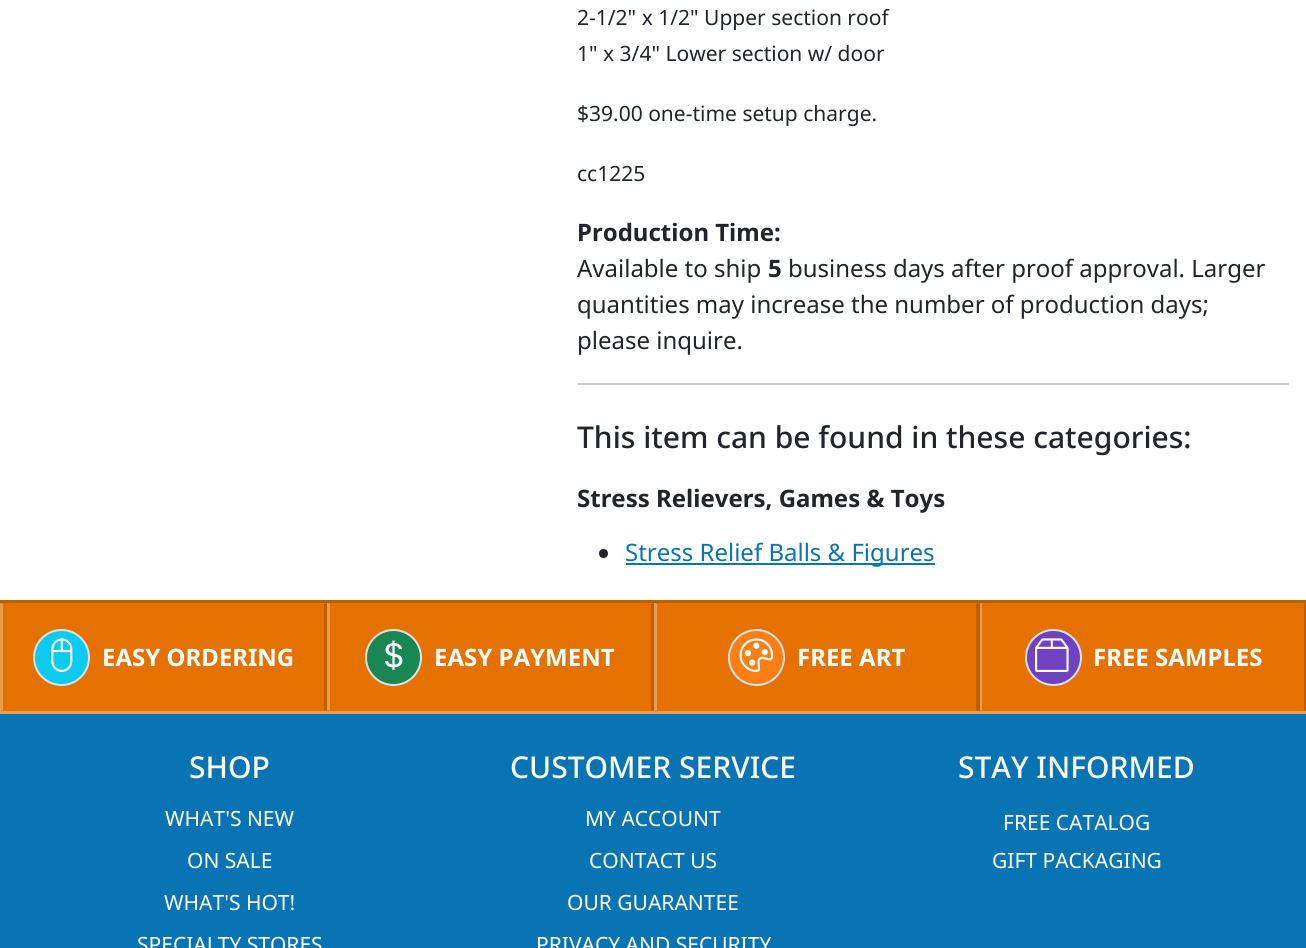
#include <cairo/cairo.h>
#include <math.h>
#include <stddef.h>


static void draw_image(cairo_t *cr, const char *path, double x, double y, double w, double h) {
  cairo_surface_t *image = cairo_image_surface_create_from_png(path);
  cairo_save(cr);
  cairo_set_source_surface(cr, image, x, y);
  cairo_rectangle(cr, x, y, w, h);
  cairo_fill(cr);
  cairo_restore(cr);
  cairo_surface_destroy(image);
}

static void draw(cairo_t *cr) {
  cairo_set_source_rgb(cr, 1, 1, 1);
  cairo_paint(cr);
  cairo_set_source_rgb(cr, 200 / 255.0, 201 / 255.0, 202 / 255.0);
  cairo_rectangle(cr, 578, 383, 711, 2);
  cairo_fill(cr);
  cairo_set_source_rgb(cr, 33 / 255.0, 37 / 255.0, 41 / 255.0);
  cairo_arc(cr, 603.5, 553.5, 4.5, 0, 2 * M_PI);
  cairo_fill(cr);
  cairo_set_source_rgb(cr, 9 / 255.0, 116 / 255.0, 179 / 255.0);
  cairo_rectangle(cr, 626, 563, 309, 2);
  cairo_fill(cr);
  cairo_set_source_rgb(cr, 229 / 255.0, 114 / 255.0, 0);
  cairo_rectangle(cr, 0, 603, 1306, 108);
  cairo_fill(cr);
  cairo_set_source_rgb(cr, 187 / 255.0, 96 / 255.0, 5 / 255.0);
  cairo_rectangle(cr, 0, 600, 1306, 3);
  cairo_fill(cr);
  cairo_set_source_rgb(cr, 232 / 255.0, 157 / 255.0, 80 / 255.0);
  cairo_rectangle(cr, 0, 711, 1306, 3);
  cairo_fill(cr);
  cairo_set_source_rgb(cr, 187 / 255.0, 96 / 255.0, 5 / 255.0);
  cairo_new_path(cr);
  cairo_move_to(cr, 327, 603);
  cairo_line_to(cr, 327, 711);
  cairo_line_to(cr, 324, 710);
  cairo_line_to(cr, 324, 604);
  cairo_close_path(cr);
  cairo_fill(cr);
  cairo_set_source_rgb(cr, 232 / 255.0, 157 / 255.0, 80 / 255.0);
  cairo_new_path(cr);
  cairo_move_to(cr, 0, 711);
  cairo_line_to(cr, 0, 603);
  cairo_line_to(cr, 3, 604);
  cairo_line_to(cr, 3, 710);
  cairo_close_path(cr);
  cairo_fill(cr);
  cairo_set_source_rgb(cr, 13 / 255.0, 202 / 255.0, 240 / 255.0);
  cairo_arc(cr, 61.5, 657.5, 27.5, 0, 2 * M_PI);
  cairo_fill_preserve(cr);
  cairo_set_source_rgb(cr, 222 / 255.0, 226 / 255.0, 230 / 255.0);
  cairo_stroke(cr);
  draw_image(cr, "images/1.png", 51, 638, 22, 34);
  cairo_set_source_rgb(cr, 187 / 255.0, 96 / 255.0, 5 / 255.0);
  cairo_new_path(cr);
  cairo_move_to(cr, 654, 603);
  cairo_line_to(cr, 654, 711);
  cairo_line_to(cr, 651, 710);
  cairo_line_to(cr, 651, 604);
  cairo_close_path(cr);
  cairo_fill(cr);
  cairo_set_source_rgb(cr, 232 / 255.0, 157 / 255.0, 80 / 255.0);
  cairo_new_path(cr);
  cairo_move_to(cr, 327, 711);
  cairo_line_to(cr, 327, 603);
  cairo_line_to(cr, 330, 604);
  cairo_line_to(cr, 330, 710);
  cairo_close_path(cr);
  cairo_fill(cr);
  cairo_set_source_rgb(cr, 25 / 255.0, 135 / 255.0, 84 / 255.0);
  cairo_arc(cr, 393.5, 657.5, 27.5, 0, 2 * M_PI);
  cairo_fill_preserve(cr);
  cairo_set_source_rgb(cr, 222 / 255.0, 226 / 255.0, 230 / 255.0);
  cairo_stroke(cr);
  draw_image(cr, "images/2.png", 384, 640, 19, 30);
  cairo_set_source_rgb(cr, 187 / 255.0, 96 / 255.0, 5 / 255.0);
  cairo_new_path(cr);
  cairo_move_to(cr, 980, 603);
  cairo_line_to(cr, 980, 711);
  cairo_line_to(cr, 976, 710);
  cairo_line_to(cr, 976, 604);
  cairo_close_path(cr);
  cairo_fill(cr);
  cairo_set_source_rgb(cr, 232 / 255.0, 157 / 255.0, 80 / 255.0);
  cairo_new_path(cr);
  cairo_move_to(cr, 654, 711);
  cairo_line_to(cr, 654, 603);
  cairo_line_to(cr, 657, 604);
  cairo_line_to(cr, 657, 710);
  cairo_close_path(cr);
  cairo_fill(cr);
  cairo_set_source_rgb(cr, 253 / 255.0, 126 / 255.0, 20 / 255.0);
  cairo_arc(cr, 756.5, 657.5, 27.5, 0, 2 * M_PI);
  cairo_fill_preserve(cr);
  cairo_set_source_rgb(cr, 222 / 255.0, 226 / 255.0, 230 / 255.0);
  cairo_stroke(cr);
  draw_image(cr, "images/3.png", 739, 638, 35, 34);
  cairo_set_source_rgb(cr, 187 / 255.0, 96 / 255.0, 5 / 255.0);
  cairo_new_path(cr);
  cairo_move_to(cr, 1306, 603);
  cairo_line_to(cr, 1306, 711);
  cairo_line_to(cr, 1304, 710);
  cairo_line_to(cr, 1304, 604);
  cairo_close_path(cr);
  cairo_fill(cr);
  cairo_set_source_rgb(cr, 232 / 255.0, 157 / 255.0, 80 / 255.0);
  cairo_new_path(cr);
  cairo_move_to(cr, 980, 711);
  cairo_line_to(cr, 980, 603);
  cairo_line_to(cr, 982, 604);
  cairo_line_to(cr, 982, 710);
  cairo_close_path(cr);
  cairo_fill(cr);
  cairo_set_source_rgb(cr, 111 / 255.0, 66 / 255.0, 193 / 255.0);
  cairo_arc(cr, 1053.5, 657.5, 27.5, 0, 2 * M_PI);
  cairo_fill_preserve(cr);
  cairo_set_source_rgb(cr, 222 / 255.0, 226 / 255.0, 230 / 255.0);
  cairo_stroke(cr);
  draw_image(cr, "images/4.png", 1035, 638, 34, 34);
  cairo_set_source_rgb(cr, 9 / 255.0, 116 / 255.0, 179 / 255.0);
  cairo_rectangle(cr, 0, 714, 1306, 234);
  cairo_fill(cr);
  cairo_select_font_face(cr, "Noto Sans", CAIRO_FONT_SLANT_NORMAL, CAIRO_FONT_WEIGHT_NORMAL);
  cairo_set_font_size(cr, 21);
  cairo_set_source_rgb(cr, 33 / 255.0, 37 / 255.0, 41 / 255.0);
  cairo_move_to(cr, 577, 25);
  cairo_show_text(cr, "2-1/2\" x 1/2\" Upper section roof");
  cairo_move_to(cr, 577, 61);
  cairo_show_text(cr, "1\" x 3/4\" Lower section w/ door");
  cairo_move_to(cr, 577, 121);
  cairo_show_text(cr, "$39.00 one-time setup charge.");
  cairo_move_to(cr, 577, 181);
  cairo_show_text(cr, "cc1225");
  cairo_select_font_face(cr, "Noto Sans", CAIRO_FONT_SLANT_NORMAL, CAIRO_FONT_WEIGHT_BOLD);
  cairo_set_font_size(cr, 24);
  cairo_move_to(cr, 577, 241);
  cairo_show_text(cr, "Production Time:");
  cairo_select_font_face(cr, "Noto Sans", CAIRO_FONT_SLANT_NORMAL, CAIRO_FONT_WEIGHT_NORMAL);
  cairo_move_to(cr, 577, 277);
  cairo_show_text(cr, "Available to ship");
  cairo_select_font_face(cr, "Noto Sans", CAIRO_FONT_SLANT_NORMAL, CAIRO_FONT_WEIGHT_BOLD);
  cairo_move_to(cr, 768, 277);
  cairo_show_text(cr, "5");
  cairo_select_font_face(cr, "Noto Sans", CAIRO_FONT_SLANT_NORMAL, CAIRO_FONT_WEIGHT_NORMAL);
  cairo_move_to(cr, 788, 277);
  cairo_show_text(cr, "business days after proof approval. Larger");
  cairo_move_to(cr, 577, 313);
  cairo_show_text(cr, "quantities may increase the number of production days;");
  cairo_move_to(cr, 577, 349);
  cairo_show_text(cr, "please inquire.");
  cairo_select_font_face(cr, "Noto Sans Medium", CAIRO_FONT_SLANT_NORMAL, CAIRO_FONT_WEIGHT_NORMAL);
  cairo_set_font_size(cr, 30);
  cairo_move_to(cr, 577, 448);
  cairo_show_text(cr, "This item can be found in these categories:");
  cairo_select_font_face(cr, "Noto Sans", CAIRO_FONT_SLANT_NORMAL, CAIRO_FONT_WEIGHT_BOLD);
  cairo_set_font_size(cr, 24);
  cairo_move_to(cr, 577, 507);
  cairo_show_text(cr, "Stress Relievers, Games & Toys");
  cairo_select_font_face(cr, "Noto Sans", CAIRO_FONT_SLANT_NORMAL, CAIRO_FONT_WEIGHT_NORMAL);
  cairo_set_source_rgb(cr, 9 / 255.0, 116 / 255.0, 179 / 255.0);
  cairo_move_to(cr, 625, 561);
  cairo_show_text(cr, "Stress Relief Balls & Figures");
  cairo_select_font_face(cr, "Noto Sans", CAIRO_FONT_SLANT_NORMAL, CAIRO_FONT_WEIGHT_BOLD);
  cairo_set_source_rgb(cr, 1, 1, 1);
  cairo_move_to(cr, 102, 666);
  cairo_show_text(cr, "EASY ORDERING");
  cairo_move_to(cr, 434, 666);
  cairo_show_text(cr, "EASY PAYMENT");
  cairo_move_to(cr, 797, 666);
  cairo_show_text(cr, "FREE ART");
  cairo_move_to(cr, 1093, 666);
  cairo_show_text(cr, "FREE SAMPLES");
  cairo_select_font_face(cr, "Noto Sans Medium", CAIRO_FONT_SLANT_NORMAL, CAIRO_FONT_WEIGHT_NORMAL);
  cairo_set_font_size(cr, 30);
  cairo_move_to(cr, 189, 778);
  cairo_show_text(cr, "SHOP");
  cairo_select_font_face(cr, "Noto Sans", CAIRO_FONT_SLANT_NORMAL, CAIRO_FONT_WEIGHT_NORMAL);
  cairo_set_font_size(cr, 21);
  cairo_move_to(cr, 165, 826);
  cairo_show_text(cr, "WHAT'S NEW");
  cairo_move_to(cr, 187, 868);
  cairo_show_text(cr, "ON SALE");
  cairo_move_to(cr, 164, 910);
  cairo_show_text(cr, "WHAT'S HOT!");
  cairo_move_to(cr, 137, 952);
  cairo_show_text(cr, "SPECIALTY STORES");
  cairo_select_font_face(cr, "Noto Sans Medium", CAIRO_FONT_SLANT_NORMAL, CAIRO_FONT_WEIGHT_NORMAL);
  cairo_set_font_size(cr, 30);
  cairo_move_to(cr, 510, 778);
  cairo_show_text(cr, "CUSTOMER SERVICE");
  cairo_select_font_face(cr, "Noto Sans", CAIRO_FONT_SLANT_NORMAL, CAIRO_FONT_WEIGHT_NORMAL);
  cairo_set_font_size(cr, 21);
  cairo_move_to(cr, 585, 826);
  cairo_show_text(cr, "MY ACCOUNT");
  cairo_move_to(cr, 589, 868);
  cairo_show_text(cr, "CONTACT US");
  cairo_move_to(cr, 567, 910);
  cairo_show_text(cr, "OUR GUARANTEE");
  cairo_move_to(cr, 536, 952);
  cairo_show_text(cr, "PRIVACY AND SECURITY");
  cairo_select_font_face(cr, "Noto Sans Medium", CAIRO_FONT_SLANT_NORMAL, CAIRO_FONT_WEIGHT_NORMAL);
  cairo_set_font_size(cr, 30);
  cairo_move_to(cr, 958, 778);
  cairo_show_text(cr, "STAY INFORMED");
  cairo_select_font_face(cr, "Noto Sans", CAIRO_FONT_SLANT_NORMAL, CAIRO_FONT_WEIGHT_NORMAL);
  cairo_set_font_size(cr, 21);
  cairo_move_to(cr, 1003, 830);
  cairo_show_text(cr, "FREE CATALOG");
  cairo_move_to(cr, 992, 868);
  cairo_show_text(cr, "GIFT PACKAGING");
}

int main(void) {
  cairo_surface_t *surface = cairo_image_surface_create(CAIRO_FORMAT_RGB24, 1306, 948);
  cairo_t *cr = cairo_create(surface);
  cairo_font_options_t *options = cairo_font_options_create();
  cairo_font_options_set_hint_metrics(options, CAIRO_HINT_METRICS_OFF);
  cairo_font_options_set_hint_style(options, CAIRO_HINT_STYLE_NONE);
  cairo_set_font_options(cr, options);
  cairo_set_miter_limit(cr, 4);
  draw(cr);
  cairo_surface_write_to_png(surface, "out.png");
  cairo_font_options_destroy(options);
  cairo_destroy(cr);
  cairo_surface_destroy(surface);
  return 0;
}
